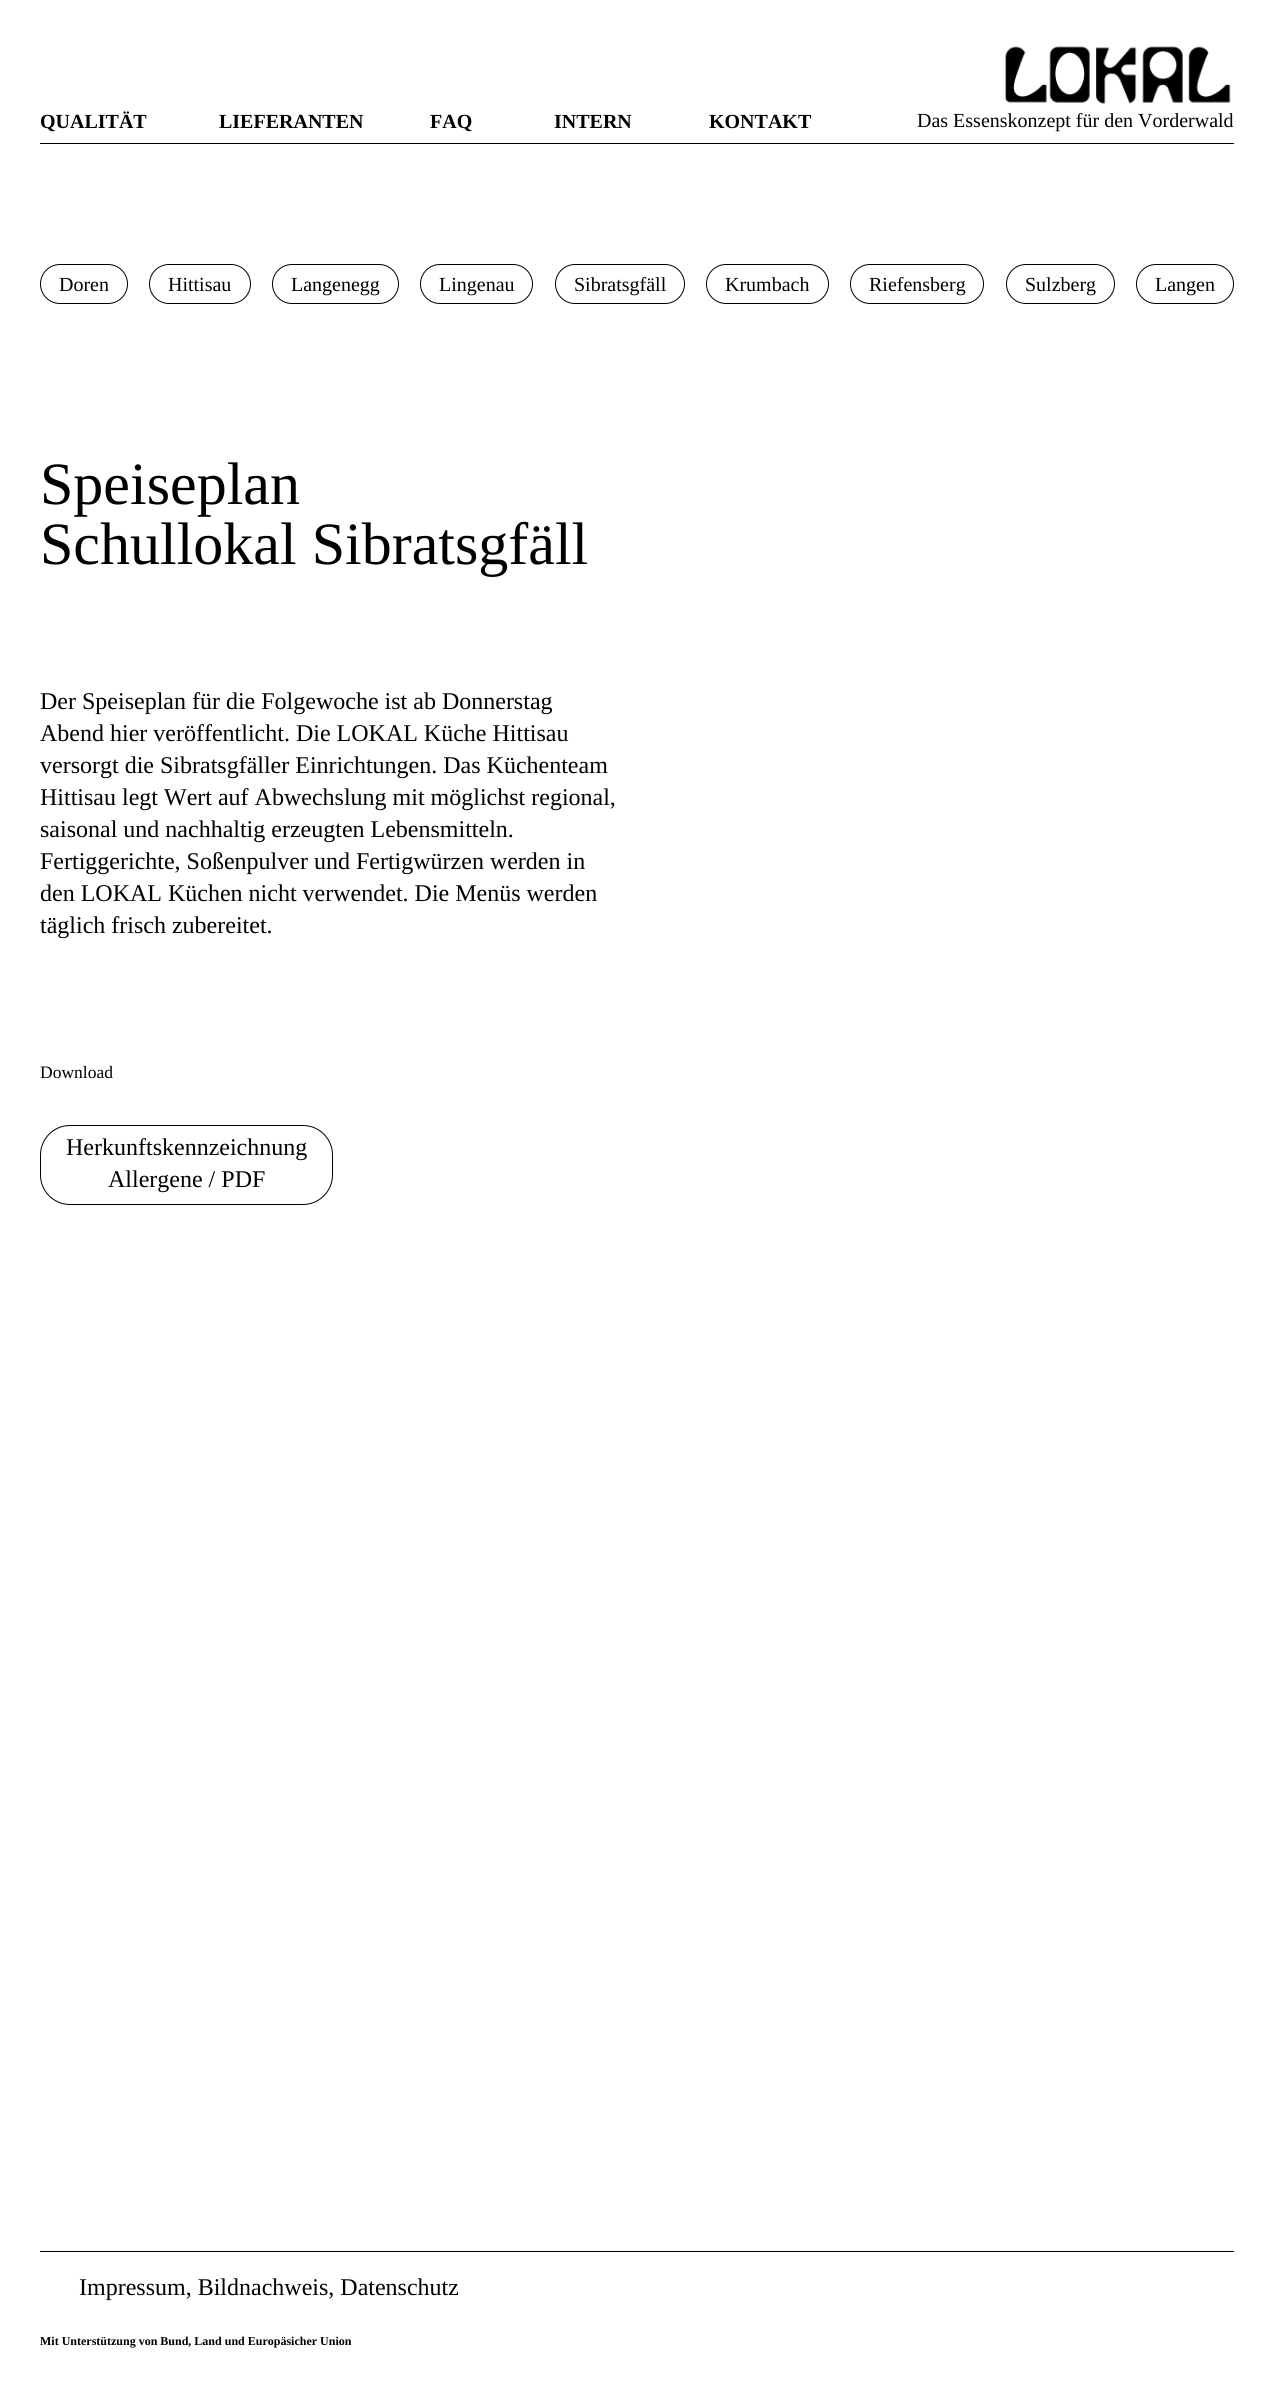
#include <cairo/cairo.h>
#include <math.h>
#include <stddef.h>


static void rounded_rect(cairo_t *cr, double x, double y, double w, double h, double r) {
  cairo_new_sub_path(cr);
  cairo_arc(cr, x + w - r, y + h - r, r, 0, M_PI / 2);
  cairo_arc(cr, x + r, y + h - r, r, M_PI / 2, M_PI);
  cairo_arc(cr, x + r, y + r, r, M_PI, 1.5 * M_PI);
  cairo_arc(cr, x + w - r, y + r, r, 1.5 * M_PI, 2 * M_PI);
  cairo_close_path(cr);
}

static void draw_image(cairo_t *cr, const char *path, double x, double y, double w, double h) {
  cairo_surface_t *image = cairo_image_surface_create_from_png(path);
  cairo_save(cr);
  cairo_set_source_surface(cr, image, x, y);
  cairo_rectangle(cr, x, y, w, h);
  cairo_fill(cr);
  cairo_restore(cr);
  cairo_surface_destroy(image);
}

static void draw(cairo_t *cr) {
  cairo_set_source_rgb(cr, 1, 1, 1);
  cairo_paint(cr);
  cairo_set_source_rgb(cr, 0, 0, 0);
  cairo_rectangle(cr, 40, 143, 1194, 1);
  cairo_fill(cr);
  draw_image(cr, "images/1.png", 1005, 46, 226, 58);
  rounded_rect(cr, 40.5, 264.5, 87, 39, 19.5);
  cairo_set_line_width(cr, 1);
  cairo_stroke(cr);
  rounded_rect(cr, 149.5, 264.5, 101, 39, 19.5);
  cairo_stroke(cr);
  rounded_rect(cr, 272.5, 264.5, 126, 39, 19.5);
  cairo_stroke(cr);
  rounded_rect(cr, 420.5, 264.5, 112, 39, 19.5);
  cairo_stroke(cr);
  rounded_rect(cr, 555.5, 264.5, 129, 39, 19.5);
  cairo_stroke(cr);
  rounded_rect(cr, 706.5, 264.5, 122, 39, 19.5);
  cairo_stroke(cr);
  rounded_rect(cr, 850.5, 264.5, 133, 39, 19.5);
  cairo_stroke(cr);
  rounded_rect(cr, 1006.5, 264.5, 108, 39, 19.5);
  cairo_stroke(cr);
  rounded_rect(cr, 1136.5, 264.5, 97, 39, 19.5);
  cairo_stroke(cr);
  rounded_rect(cr, 40.5, 1125.5, 292, 79, 29.5);
  cairo_stroke(cr);
  cairo_rectangle(cr, 40, 2251, 1194, 1);
  cairo_fill(cr);
  cairo_select_font_face(cr, "Liberation Serif", CAIRO_FONT_SLANT_NORMAL, CAIRO_FONT_WEIGHT_BOLD);
  cairo_set_font_size(cr, 20);
  cairo_move_to(cr, 40, 128);
  cairo_show_text(cr, "QUALITÄT");
  cairo_move_to(cr, 219, 128);
  cairo_show_text(cr, "LIEFERANTEN");
  cairo_move_to(cr, 430, 128);
  cairo_show_text(cr, "FAQ");
  cairo_move_to(cr, 554, 128);
  cairo_show_text(cr, "INTERN");
  cairo_move_to(cr, 709, 128);
  cairo_show_text(cr, "KONTAKT");
  cairo_select_font_face(cr, "Liberation Serif", CAIRO_FONT_SLANT_NORMAL, CAIRO_FONT_WEIGHT_NORMAL);
  cairo_move_to(cr, 917, 127);
  cairo_show_text(cr, "Das Essenskonzept für den Vorderwald");
  cairo_move_to(cr, 59, 291);
  cairo_show_text(cr, "Doren");
  cairo_move_to(cr, 168, 291);
  cairo_show_text(cr, "Hittisau");
  cairo_move_to(cr, 291, 291);
  cairo_show_text(cr, "Langenegg");
  cairo_move_to(cr, 439, 291);
  cairo_show_text(cr, "Lingenau");
  cairo_move_to(cr, 574, 291);
  cairo_show_text(cr, "Sibratsgfäll");
  cairo_move_to(cr, 725, 291);
  cairo_show_text(cr, "Krumbach");
  cairo_move_to(cr, 869, 291);
  cairo_show_text(cr, "Riefensberg");
  cairo_move_to(cr, 1025, 291);
  cairo_show_text(cr, "Sulzberg");
  cairo_move_to(cr, 1155, 291);
  cairo_show_text(cr, "Langen");
  cairo_set_font_size(cr, 60);
  cairo_move_to(cr, 40, 504);
  cairo_show_text(cr, "Speiseplan");
  cairo_move_to(cr, 40, 564);
  cairo_show_text(cr, "Schullokal Sibratsgfäll");
  cairo_set_font_size(cr, 24);
  cairo_move_to(cr, 40, 709);
  cairo_show_text(cr, "Der Speiseplan für die Folgewoche ist ab Donnerstag");
  cairo_move_to(cr, 40, 741);
  cairo_show_text(cr, "Abend hier veröffentlicht. Die LOKAL Küche Hittisau");
  cairo_move_to(cr, 40, 773);
  cairo_show_text(cr, "versorgt die Sibratsgfäller Einrichtungen. Das Küchenteam");
  cairo_move_to(cr, 40, 805);
  cairo_show_text(cr, "Hittisau legt Wert auf Abwechslung mit möglichst regional,");
  cairo_move_to(cr, 40, 837);
  cairo_show_text(cr, "saisonal und nachhaltig erzeugten Lebensmitteln.");
  cairo_move_to(cr, 40, 869);
  cairo_show_text(cr, "Fertiggerichte, Soßenpulver und Fertigwürzen werden in");
  cairo_move_to(cr, 40, 901);
  cairo_show_text(cr, "den LOKAL Küchen nicht verwendet. Die Menüs werden");
  cairo_move_to(cr, 40, 933);
  cairo_show_text(cr, "täglich frisch zubereitet.");
  cairo_set_font_size(cr, 17.5);
  cairo_move_to(cr, 40, 1078);
  cairo_show_text(cr, "Download");
  cairo_set_font_size(cr, 24);
  cairo_move_to(cr, 66, 1155);
  cairo_show_text(cr, "Herkunftskennzeichnung");
  cairo_move_to(cr, 108, 1187);
  cairo_show_text(cr, "Allergene / PDF");
  cairo_move_to(cr, 79, 2295);
  cairo_show_text(cr, "Impressum, Bildnachweis, Datenschutz");
  cairo_select_font_face(cr, "Liberation Serif", CAIRO_FONT_SLANT_NORMAL, CAIRO_FONT_WEIGHT_BOLD);
  cairo_set_font_size(cr, 12);
  cairo_move_to(cr, 40, 2345);
  cairo_show_text(cr, "Mit Unterstützung von Bund, Land und Europäsicher Union");
}

int main(void) {
  cairo_surface_t *surface = cairo_image_surface_create(CAIRO_FORMAT_RGB24, 1274, 2391);
  cairo_t *cr = cairo_create(surface);
  cairo_font_options_t *options = cairo_font_options_create();
  cairo_font_options_set_hint_metrics(options, CAIRO_HINT_METRICS_OFF);
  cairo_font_options_set_hint_style(options, CAIRO_HINT_STYLE_NONE);
  cairo_set_font_options(cr, options);
  cairo_set_miter_limit(cr, 4);
  draw(cr);
  cairo_surface_write_to_png(surface, "out.png");
  cairo_font_options_destroy(options);
  cairo_destroy(cr);
  cairo_surface_destroy(surface);
  return 0;
}
